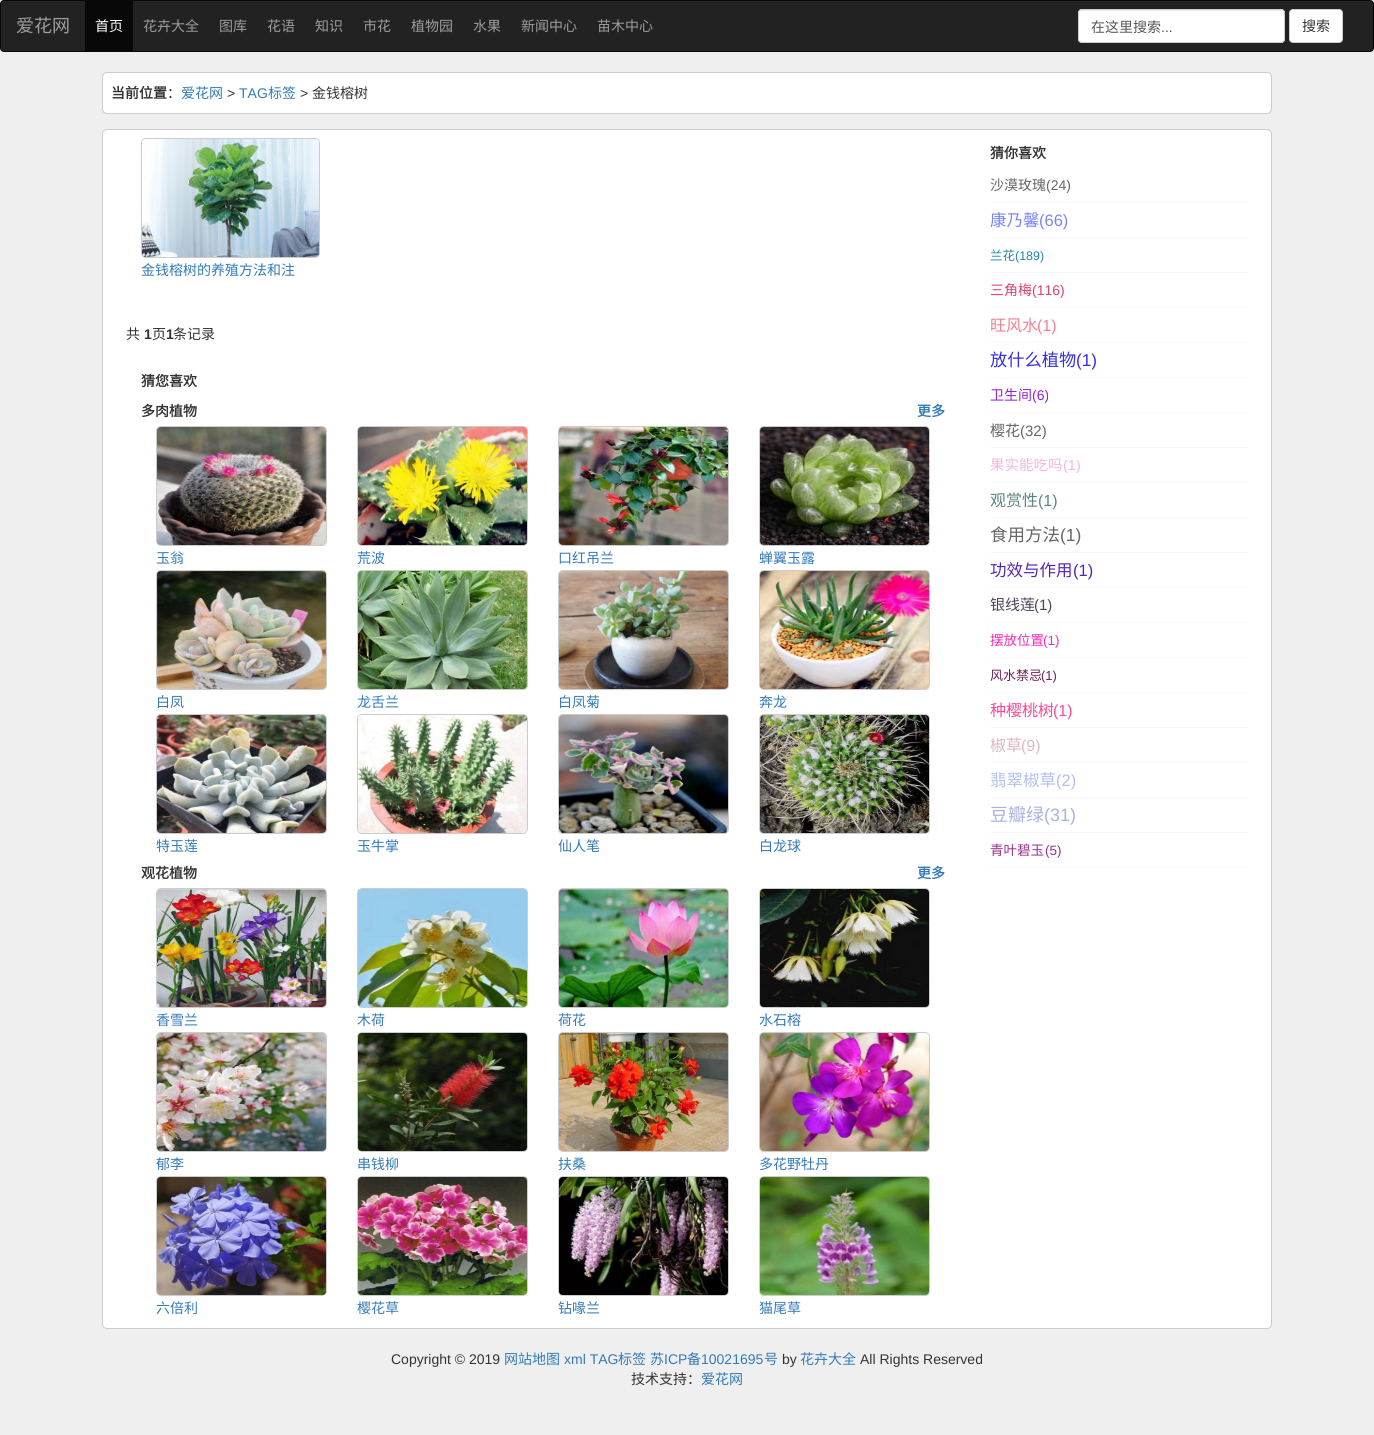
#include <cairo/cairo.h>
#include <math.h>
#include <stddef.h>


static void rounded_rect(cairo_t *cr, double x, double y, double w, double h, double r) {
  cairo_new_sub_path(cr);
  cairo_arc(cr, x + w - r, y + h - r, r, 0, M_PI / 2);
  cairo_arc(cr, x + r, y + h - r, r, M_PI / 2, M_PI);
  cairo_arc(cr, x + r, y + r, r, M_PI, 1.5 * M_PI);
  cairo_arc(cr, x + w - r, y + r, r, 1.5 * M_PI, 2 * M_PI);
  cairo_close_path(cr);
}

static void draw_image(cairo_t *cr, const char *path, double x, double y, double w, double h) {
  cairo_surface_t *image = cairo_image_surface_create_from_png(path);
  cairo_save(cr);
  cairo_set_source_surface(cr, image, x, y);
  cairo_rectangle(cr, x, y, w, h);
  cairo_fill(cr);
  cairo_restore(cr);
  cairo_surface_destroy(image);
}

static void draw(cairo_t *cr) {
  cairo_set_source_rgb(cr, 239 / 255.0, 239 / 255.0, 239 / 255.0);
  cairo_paint(cr);
  cairo_set_source_rgb(cr, 34 / 255.0, 34 / 255.0, 34 / 255.0);
  rounded_rect(cr, 0.5, 0.5, 1373, 51, 3.5);
  cairo_fill_preserve(cr);
  cairo_set_source_rgb(cr, 8 / 255.0, 8 / 255.0, 8 / 255.0);
  cairo_set_line_width(cr, 1);
  cairo_stroke(cr);
  cairo_rectangle(cr, 85, 1, 48, 50);
  cairo_fill(cr);
  cairo_set_source_rgb(cr, 1, 1, 1);
  rounded_rect(cr, 1078, 9, 207, 34, 4);
  cairo_fill(cr);
  cairo_set_source_rgb(cr, 236 / 255.0, 236 / 255.0, 236 / 255.0);
  cairo_new_path(cr);
  cairo_move_to(cr, 1082, 11);
  cairo_line_to(cr, 1281, 11);
  cairo_curve_to(cr, 1283, 11, 1284, 12, 1284, 14);
  cairo_curve_to(cr, 1284, 12, 1283, 10, 1281, 10);
  cairo_line_to(cr, 1082, 10);
  cairo_curve_to(cr, 1080, 10, 1079, 12, 1079, 14);
  cairo_curve_to(cr, 1079, 12, 1080, 11, 1082, 11);
  cairo_close_path(cr);
  cairo_fill(cr);
  rounded_rect(cr, 1078.5, 9.5, 206, 33, 3.5);
  cairo_set_source_rgb(cr, 204 / 255.0, 204 / 255.0, 204 / 255.0);
  cairo_stroke(cr);
  cairo_set_source_rgb(cr, 1, 1, 1);
  rounded_rect(cr, 1289.5, 9.5, 53, 33, 3.5);
  cairo_fill_preserve(cr);
  cairo_set_source_rgb(cr, 204 / 255.0, 204 / 255.0, 204 / 255.0);
  cairo_stroke(cr);
  cairo_set_source_rgb(cr, 1, 1, 1);
  rounded_rect(cr, 102.5, 72.5, 1169, 41, 4.5);
  cairo_fill_preserve(cr);
  cairo_set_source_rgb(cr, 204 / 255.0, 204 / 255.0, 204 / 255.0);
  cairo_stroke(cr);
  cairo_set_source_rgb(cr, 1, 1, 1);
  rounded_rect(cr, 102.5, 129.5, 1169, 1199, 4.5);
  cairo_fill_preserve(cr);
  cairo_set_source_rgb(cr, 204 / 255.0, 204 / 255.0, 204 / 255.0);
  cairo_stroke(cr);
  rounded_rect(cr, 141.5, 138.5, 178, 119, 4.5);
  cairo_stroke(cr);
  draw_image(cr, "images/1.png", 142, 139, 177, 118);
  rounded_rect(cr, 156.5, 426.5, 170, 119, 4.5);
  cairo_stroke(cr);
  draw_image(cr, "images/2.png", 157, 427, 169, 118);
  rounded_rect(cr, 357.5, 426.5, 170, 119, 4.5);
  cairo_stroke(cr);
  draw_image(cr, "images/3.png", 358, 427, 169, 118);
  rounded_rect(cr, 558.5, 426.5, 170, 119, 4.5);
  cairo_stroke(cr);
  draw_image(cr, "images/4.png", 559, 427, 169, 118);
  rounded_rect(cr, 759.5, 426.5, 170, 119, 4.5);
  cairo_stroke(cr);
  draw_image(cr, "images/5.png", 760, 427, 169, 118);
  rounded_rect(cr, 156.5, 570.5, 170, 119, 4.5);
  cairo_stroke(cr);
  draw_image(cr, "images/6.png", 157, 571, 169, 118);
  rounded_rect(cr, 357.5, 570.5, 170, 119, 4.5);
  cairo_stroke(cr);
  draw_image(cr, "images/7.png", 358, 571, 169, 118);
  rounded_rect(cr, 558.5, 570.5, 170, 119, 4.5);
  cairo_stroke(cr);
  draw_image(cr, "images/8.png", 559, 571, 169, 118);
  rounded_rect(cr, 759.5, 570.5, 170, 119, 4.5);
  cairo_stroke(cr);
  draw_image(cr, "images/9.png", 760, 571, 169, 118);
  rounded_rect(cr, 156.5, 714.5, 170, 119, 4.5);
  cairo_stroke(cr);
  draw_image(cr, "images/10.png", 157, 715, 169, 118);
  rounded_rect(cr, 357.5, 714.5, 170, 119, 4.5);
  cairo_stroke(cr);
  draw_image(cr, "images/11.png", 358, 715, 169, 118);
  rounded_rect(cr, 558.5, 714.5, 170, 119, 4.5);
  cairo_stroke(cr);
  draw_image(cr, "images/12.png", 559, 715, 169, 118);
  rounded_rect(cr, 759.5, 714.5, 170, 119, 4.5);
  cairo_stroke(cr);
  draw_image(cr, "images/13.png", 760, 715, 169, 118);
  rounded_rect(cr, 156.5, 888.5, 170, 119, 4.5);
  cairo_stroke(cr);
  draw_image(cr, "images/14.png", 157, 889, 169, 118);
  rounded_rect(cr, 357.5, 888.5, 170, 119, 4.5);
  cairo_stroke(cr);
  draw_image(cr, "images/15.png", 358, 889, 169, 118);
  rounded_rect(cr, 558.5, 888.5, 170, 119, 4.5);
  cairo_stroke(cr);
  draw_image(cr, "images/16.png", 559, 889, 169, 118);
  rounded_rect(cr, 759.5, 888.5, 170, 119, 4.5);
  cairo_stroke(cr);
  draw_image(cr, "images/17.png", 760, 889, 169, 118);
  rounded_rect(cr, 156.5, 1032.5, 170, 119, 4.5);
  cairo_stroke(cr);
  draw_image(cr, "images/18.png", 157, 1033, 169, 118);
  rounded_rect(cr, 357.5, 1032.5, 170, 119, 4.5);
  cairo_stroke(cr);
  draw_image(cr, "images/19.png", 358, 1033, 169, 118);
  rounded_rect(cr, 558.5, 1032.5, 170, 119, 4.5);
  cairo_stroke(cr);
  draw_image(cr, "images/20.png", 559, 1033, 169, 118);
  rounded_rect(cr, 759.5, 1032.5, 170, 119, 4.5);
  cairo_stroke(cr);
  draw_image(cr, "images/21.png", 760, 1033, 169, 118);
  rounded_rect(cr, 156.5, 1176.5, 170, 119, 4.5);
  cairo_stroke(cr);
  draw_image(cr, "images/22.png", 157, 1177, 169, 118);
  rounded_rect(cr, 357.5, 1176.5, 170, 119, 4.5);
  cairo_stroke(cr);
  draw_image(cr, "images/23.png", 358, 1177, 169, 118);
  rounded_rect(cr, 558.5, 1176.5, 170, 119, 4.5);
  cairo_stroke(cr);
  draw_image(cr, "images/24.png", 559, 1177, 169, 118);
  rounded_rect(cr, 759.5, 1176.5, 170, 119, 4.5);
  cairo_stroke(cr);
  draw_image(cr, "images/25.png", 760, 1177, 169, 118);
  cairo_new_path(cr);
  cairo_move_to(cr, 990, 202.5);
  cairo_line_to(cr, 1248, 202.5);
  cairo_set_source_rgb(cr, 239 / 255.0, 239 / 255.0, 239 / 255.0);
  cairo_set_dash(cr, (double[]){1, 1}, 2, 0);
  cairo_stroke(cr);
  cairo_new_path(cr);
  cairo_move_to(cr, 990, 237.5);
  cairo_line_to(cr, 1248, 237.5);
  cairo_stroke(cr);
  cairo_new_path(cr);
  cairo_move_to(cr, 990, 272.5);
  cairo_line_to(cr, 1248, 272.5);
  cairo_stroke(cr);
  cairo_new_path(cr);
  cairo_move_to(cr, 990, 307.5);
  cairo_line_to(cr, 1248, 307.5);
  cairo_stroke(cr);
  cairo_new_path(cr);
  cairo_move_to(cr, 990, 342.5);
  cairo_line_to(cr, 1248, 342.5);
  cairo_stroke(cr);
  cairo_new_path(cr);
  cairo_move_to(cr, 990, 377.5);
  cairo_line_to(cr, 1248, 377.5);
  cairo_stroke(cr);
  cairo_new_path(cr);
  cairo_move_to(cr, 990, 412.5);
  cairo_line_to(cr, 1248, 412.5);
  cairo_stroke(cr);
  cairo_new_path(cr);
  cairo_move_to(cr, 990, 447.5);
  cairo_line_to(cr, 1248, 447.5);
  cairo_stroke(cr);
  cairo_new_path(cr);
  cairo_move_to(cr, 990, 482.5);
  cairo_line_to(cr, 1248, 482.5);
  cairo_stroke(cr);
  cairo_new_path(cr);
  cairo_move_to(cr, 990, 517.5);
  cairo_line_to(cr, 1248, 517.5);
  cairo_stroke(cr);
  cairo_new_path(cr);
  cairo_move_to(cr, 990, 552.5);
  cairo_line_to(cr, 1248, 552.5);
  cairo_stroke(cr);
  cairo_new_path(cr);
  cairo_move_to(cr, 990, 587.5);
  cairo_line_to(cr, 1248, 587.5);
  cairo_stroke(cr);
  cairo_new_path(cr);
  cairo_move_to(cr, 990, 622.5);
  cairo_line_to(cr, 1248, 622.5);
  cairo_stroke(cr);
  cairo_new_path(cr);
  cairo_move_to(cr, 990, 657.5);
  cairo_line_to(cr, 1248, 657.5);
  cairo_stroke(cr);
  cairo_new_path(cr);
  cairo_move_to(cr, 990, 692.5);
  cairo_line_to(cr, 1248, 692.5);
  cairo_stroke(cr);
  cairo_new_path(cr);
  cairo_move_to(cr, 990, 727.5);
  cairo_line_to(cr, 1248, 727.5);
  cairo_stroke(cr);
  cairo_new_path(cr);
  cairo_move_to(cr, 990, 762.5);
  cairo_line_to(cr, 1248, 762.5);
  cairo_stroke(cr);
  cairo_new_path(cr);
  cairo_move_to(cr, 990, 797.5);
  cairo_line_to(cr, 1248, 797.5);
  cairo_stroke(cr);
  cairo_new_path(cr);
  cairo_move_to(cr, 990, 832.5);
  cairo_line_to(cr, 1248, 832.5);
  cairo_stroke(cr);
  cairo_new_path(cr);
  cairo_move_to(cr, 990, 867.5);
  cairo_line_to(cr, 1248, 867.5);
  cairo_stroke(cr);
  cairo_select_font_face(cr, "Noto Sans CJK SC", CAIRO_FONT_SLANT_NORMAL, CAIRO_FONT_WEIGHT_NORMAL);
  cairo_set_font_size(cr, 18);
  cairo_set_source_rgb(cr, 157 / 255.0, 157 / 255.0, 157 / 255.0);
  cairo_move_to(cr, 16, 32);
  cairo_show_text(cr, "爱花网");
  cairo_set_font_size(cr, 14);
  cairo_set_source_rgb(cr, 1, 1, 1);
  cairo_move_to(cr, 95, 31);
  cairo_show_text(cr, "首页");
  cairo_set_source_rgb(cr, 157 / 255.0, 157 / 255.0, 157 / 255.0);
  cairo_move_to(cr, 143, 31);
  cairo_show_text(cr, "花卉大全");
  cairo_move_to(cr, 219, 31);
  cairo_show_text(cr, "图库");
  cairo_move_to(cr, 267, 31);
  cairo_show_text(cr, "花语");
  cairo_move_to(cr, 315, 31);
  cairo_show_text(cr, "知识");
  cairo_move_to(cr, 363, 31);
  cairo_show_text(cr, "市花");
  cairo_move_to(cr, 411, 31);
  cairo_show_text(cr, "植物园");
  cairo_move_to(cr, 473, 31);
  cairo_show_text(cr, "水果");
  cairo_move_to(cr, 521, 31);
  cairo_show_text(cr, "新闻中心");
  cairo_move_to(cr, 597, 31);
  cairo_show_text(cr, "苗木中心");
  cairo_set_source_rgb(cr, 85 / 255.0, 85 / 255.0, 85 / 255.0);
  cairo_move_to(cr, 1091, 32);
  cairo_show_text(cr, "在这里搜索");
  cairo_select_font_face(cr, "Liberation Sans", CAIRO_FONT_SLANT_NORMAL, CAIRO_FONT_WEIGHT_NORMAL);
  cairo_move_to(cr, 1161, 32);
  cairo_show_text(cr, "...");
  cairo_select_font_face(cr, "Noto Sans CJK SC", CAIRO_FONT_SLANT_NORMAL, CAIRO_FONT_WEIGHT_NORMAL);
  cairo_set_source_rgb(cr, 51 / 255.0, 51 / 255.0, 51 / 255.0);
  cairo_move_to(cr, 1302, 31);
  cairo_show_text(cr, "搜索");
  cairo_select_font_face(cr, "Noto Sans CJK SC", CAIRO_FONT_SLANT_NORMAL, CAIRO_FONT_WEIGHT_BOLD);
  cairo_move_to(cr, 111, 98);
  cairo_show_text(cr, "当前位置");
  cairo_select_font_face(cr, "Noto Sans CJK SC", CAIRO_FONT_SLANT_NORMAL, CAIRO_FONT_WEIGHT_NORMAL);
  cairo_move_to(cr, 167, 98);
  cairo_show_text(cr, "：");
  cairo_set_source_rgb(cr, 51 / 255.0, 122 / 255.0, 183 / 255.0);
  cairo_move_to(cr, 181, 98);
  cairo_show_text(cr, "爱花网");
  cairo_select_font_face(cr, "Liberation Sans", CAIRO_FONT_SLANT_NORMAL, CAIRO_FONT_WEIGHT_NORMAL);
  cairo_set_source_rgb(cr, 51 / 255.0, 51 / 255.0, 51 / 255.0);
  cairo_move_to(cr, 227, 98);
  cairo_show_text(cr, ">");
  cairo_set_source_rgb(cr, 51 / 255.0, 122 / 255.0, 183 / 255.0);
  cairo_move_to(cr, 239, 98);
  cairo_show_text(cr, "TAG");
  cairo_select_font_face(cr, "Noto Sans CJK SC", CAIRO_FONT_SLANT_NORMAL, CAIRO_FONT_WEIGHT_NORMAL);
  cairo_move_to(cr, 268, 98);
  cairo_show_text(cr, "标签");
  cairo_select_font_face(cr, "Liberation Sans", CAIRO_FONT_SLANT_NORMAL, CAIRO_FONT_WEIGHT_NORMAL);
  cairo_set_source_rgb(cr, 51 / 255.0, 51 / 255.0, 51 / 255.0);
  cairo_move_to(cr, 300, 98);
  cairo_show_text(cr, ">");
  cairo_select_font_face(cr, "Noto Sans CJK SC", CAIRO_FONT_SLANT_NORMAL, CAIRO_FONT_WEIGHT_NORMAL);
  cairo_move_to(cr, 312, 98);
  cairo_show_text(cr, "金钱榕树");
  cairo_set_source_rgb(cr, 51 / 255.0, 122 / 255.0, 183 / 255.0);
  cairo_move_to(cr, 141, 275);
  cairo_show_text(cr, "金钱榕树的养殖方法和注");
  cairo_set_source_rgb(cr, 51 / 255.0, 51 / 255.0, 51 / 255.0);
  cairo_move_to(cr, 126, 339);
  cairo_show_text(cr, "共");
  cairo_select_font_face(cr, "Liberation Sans", CAIRO_FONT_SLANT_NORMAL, CAIRO_FONT_WEIGHT_BOLD);
  cairo_move_to(cr, 144, 339);
  cairo_show_text(cr, "1");
  cairo_select_font_face(cr, "Noto Sans CJK SC", CAIRO_FONT_SLANT_NORMAL, CAIRO_FONT_WEIGHT_NORMAL);
  cairo_move_to(cr, 152, 339);
  cairo_show_text(cr, "页");
  cairo_select_font_face(cr, "Liberation Sans", CAIRO_FONT_SLANT_NORMAL, CAIRO_FONT_WEIGHT_BOLD);
  cairo_move_to(cr, 166, 339);
  cairo_show_text(cr, "1");
  cairo_select_font_face(cr, "Noto Sans CJK SC", CAIRO_FONT_SLANT_NORMAL, CAIRO_FONT_WEIGHT_NORMAL);
  cairo_move_to(cr, 173, 339);
  cairo_show_text(cr, "条记录");
  cairo_select_font_face(cr, "Noto Sans CJK SC", CAIRO_FONT_SLANT_NORMAL, CAIRO_FONT_WEIGHT_BOLD);
  cairo_move_to(cr, 141, 386);
  cairo_show_text(cr, "猜您喜欢");
  cairo_move_to(cr, 141, 416);
  cairo_show_text(cr, "多肉植物");
  cairo_set_source_rgb(cr, 51 / 255.0, 122 / 255.0, 183 / 255.0);
  cairo_move_to(cr, 917, 416);
  cairo_show_text(cr, "更多");
  cairo_select_font_face(cr, "Noto Sans CJK SC", CAIRO_FONT_SLANT_NORMAL, CAIRO_FONT_WEIGHT_NORMAL);
  cairo_move_to(cr, 156, 563);
  cairo_show_text(cr, "玉翁");
  cairo_move_to(cr, 357, 563);
  cairo_show_text(cr, "荒波");
  cairo_move_to(cr, 558, 563);
  cairo_show_text(cr, "口红吊兰");
  cairo_move_to(cr, 759, 563);
  cairo_show_text(cr, "蝉翼玉露");
  cairo_move_to(cr, 156, 707);
  cairo_show_text(cr, "白凤");
  cairo_move_to(cr, 357, 707);
  cairo_show_text(cr, "龙舌兰");
  cairo_move_to(cr, 558, 707);
  cairo_show_text(cr, "白凤菊");
  cairo_move_to(cr, 759, 707);
  cairo_show_text(cr, "奔龙");
  cairo_move_to(cr, 156, 851);
  cairo_show_text(cr, "特玉莲");
  cairo_move_to(cr, 357, 851);
  cairo_show_text(cr, "玉牛掌");
  cairo_move_to(cr, 558, 851);
  cairo_show_text(cr, "仙人笔");
  cairo_move_to(cr, 759, 851);
  cairo_show_text(cr, "白龙球");
  cairo_select_font_face(cr, "Noto Sans CJK SC", CAIRO_FONT_SLANT_NORMAL, CAIRO_FONT_WEIGHT_BOLD);
  cairo_set_source_rgb(cr, 51 / 255.0, 51 / 255.0, 51 / 255.0);
  cairo_move_to(cr, 141, 878);
  cairo_show_text(cr, "观花植物");
  cairo_set_source_rgb(cr, 51 / 255.0, 122 / 255.0, 183 / 255.0);
  cairo_move_to(cr, 917, 878);
  cairo_show_text(cr, "更多");
  cairo_select_font_face(cr, "Noto Sans CJK SC", CAIRO_FONT_SLANT_NORMAL, CAIRO_FONT_WEIGHT_NORMAL);
  cairo_move_to(cr, 156, 1025);
  cairo_show_text(cr, "香雪兰");
  cairo_move_to(cr, 357, 1025);
  cairo_show_text(cr, "木荷");
  cairo_move_to(cr, 558, 1025);
  cairo_show_text(cr, "荷花");
  cairo_move_to(cr, 759, 1025);
  cairo_show_text(cr, "水石榕");
  cairo_move_to(cr, 156, 1169);
  cairo_show_text(cr, "郁李");
  cairo_move_to(cr, 357, 1169);
  cairo_show_text(cr, "串钱柳");
  cairo_move_to(cr, 558, 1169);
  cairo_show_text(cr, "扶桑");
  cairo_move_to(cr, 759, 1169);
  cairo_show_text(cr, "多花野牡丹");
  cairo_move_to(cr, 156, 1313);
  cairo_show_text(cr, "六倍利");
  cairo_move_to(cr, 357, 1313);
  cairo_show_text(cr, "樱花草");
  cairo_move_to(cr, 558, 1313);
  cairo_show_text(cr, "钻喙兰");
  cairo_move_to(cr, 759, 1313);
  cairo_show_text(cr, "猫尾草");
  cairo_select_font_face(cr, "Noto Sans CJK SC", CAIRO_FONT_SLANT_NORMAL, CAIRO_FONT_WEIGHT_BOLD);
  cairo_set_source_rgb(cr, 51 / 255.0, 51 / 255.0, 51 / 255.0);
  cairo_move_to(cr, 990, 158);
  cairo_show_text(cr, "猜你喜欢");
  cairo_select_font_face(cr, "Noto Sans CJK SC", CAIRO_FONT_SLANT_NORMAL, CAIRO_FONT_WEIGHT_NORMAL);
  cairo_set_source_rgb(cr, 102 / 255.0, 102 / 255.0, 102 / 255.0);
  cairo_move_to(cr, 990, 190);
  cairo_show_text(cr, "沙漠玫瑰");
  cairo_select_font_face(cr, "Liberation Sans", CAIRO_FONT_SLANT_NORMAL, CAIRO_FONT_WEIGHT_NORMAL);
  cairo_move_to(cr, 1046, 190);
  cairo_show_text(cr, "(24)");
  cairo_select_font_face(cr, "Noto Sans CJK SC", CAIRO_FONT_SLANT_NORMAL, CAIRO_FONT_WEIGHT_NORMAL);
  cairo_set_font_size(cr, 16.5);
  cairo_set_source_rgb(cr, 120 / 255.0, 134 / 255.0, 251 / 255.0);
  cairo_move_to(cr, 990, 226);
  cairo_show_text(cr, "康乃馨");
  cairo_select_font_face(cr, "Liberation Sans", CAIRO_FONT_SLANT_NORMAL, CAIRO_FONT_WEIGHT_NORMAL);
  cairo_move_to(cr, 1039, 226);
  cairo_show_text(cr, "(66)");
  cairo_select_font_face(cr, "Noto Sans CJK SC", CAIRO_FONT_SLANT_NORMAL, CAIRO_FONT_WEIGHT_NORMAL);
  cairo_set_font_size(cr, 12.5);
  cairo_set_source_rgb(cr, 37 / 255.0, 134 / 255.0, 169 / 255.0);
  cairo_move_to(cr, 990, 260);
  cairo_show_text(cr, "兰花");
  cairo_select_font_face(cr, "Liberation Sans", CAIRO_FONT_SLANT_NORMAL, CAIRO_FONT_WEIGHT_NORMAL);
  cairo_move_to(cr, 1015, 260);
  cairo_show_text(cr, "(189)");
  cairo_select_font_face(cr, "Noto Sans CJK SC", CAIRO_FONT_SLANT_NORMAL, CAIRO_FONT_WEIGHT_NORMAL);
  cairo_set_font_size(cr, 14);
  cairo_set_source_rgb(cr, 224 / 255.0, 65 / 255.0, 115 / 255.0);
  cairo_move_to(cr, 990, 295);
  cairo_show_text(cr, "三角梅");
  cairo_select_font_face(cr, "Liberation Sans", CAIRO_FONT_SLANT_NORMAL, CAIRO_FONT_WEIGHT_NORMAL);
  cairo_move_to(cr, 1032, 295);
  cairo_show_text(cr, "(116)");
  cairo_select_font_face(cr, "Noto Sans CJK SC", CAIRO_FONT_SLANT_NORMAL, CAIRO_FONT_WEIGHT_NORMAL);
  cairo_set_font_size(cr, 16);
  cairo_set_source_rgb(cr, 244 / 255.0, 126 / 255.0, 144 / 255.0);
  cairo_move_to(cr, 990, 331);
  cairo_show_text(cr, "旺风水");
  cairo_select_font_face(cr, "Liberation Sans", CAIRO_FONT_SLANT_NORMAL, CAIRO_FONT_WEIGHT_NORMAL);
  cairo_move_to(cr, 1037, 331);
  cairo_show_text(cr, "(1)");
  cairo_select_font_face(cr, "Noto Sans CJK SC", CAIRO_FONT_SLANT_NORMAL, CAIRO_FONT_WEIGHT_NORMAL);
  cairo_set_font_size(cr, 17.25);
  cairo_set_source_rgb(cr, 54 / 255.0, 48 / 255.0, 222 / 255.0);
  cairo_move_to(cr, 990, 366);
  cairo_show_text(cr, "放什么植物");
  cairo_select_font_face(cr, "Liberation Sans", CAIRO_FONT_SLANT_NORMAL, CAIRO_FONT_WEIGHT_NORMAL);
  cairo_move_to(cr, 1076, 366);
  cairo_show_text(cr, "(1)");
  cairo_select_font_face(cr, "Noto Sans CJK SC", CAIRO_FONT_SLANT_NORMAL, CAIRO_FONT_WEIGHT_NORMAL);
  cairo_set_font_size(cr, 14);
  cairo_set_source_rgb(cr, 144 / 255.0, 34 / 255.0, 215 / 255.0);
  cairo_move_to(cr, 990, 400);
  cairo_show_text(cr, "卫生间");
  cairo_select_font_face(cr, "Liberation Sans", CAIRO_FONT_SLANT_NORMAL, CAIRO_FONT_WEIGHT_NORMAL);
  cairo_move_to(cr, 1032, 400);
  cairo_show_text(cr, "(6)");
  cairo_select_font_face(cr, "Noto Sans CJK SC", CAIRO_FONT_SLANT_NORMAL, CAIRO_FONT_WEIGHT_NORMAL);
  cairo_set_font_size(cr, 15);
  cairo_set_source_rgb(cr, 102 / 255.0, 102 / 255.0, 102 / 255.0);
  cairo_move_to(cr, 990, 436);
  cairo_show_text(cr, "樱花");
  cairo_select_font_face(cr, "Liberation Sans", CAIRO_FONT_SLANT_NORMAL, CAIRO_FONT_WEIGHT_NORMAL);
  cairo_move_to(cr, 1020, 436);
  cairo_show_text(cr, "(32)");
  cairo_select_font_face(cr, "Noto Sans CJK SC", CAIRO_FONT_SLANT_NORMAL, CAIRO_FONT_WEIGHT_NORMAL);
  cairo_set_font_size(cr, 14.5);
  cairo_set_source_rgb(cr, 239 / 255.0, 184 / 255.0, 231 / 255.0);
  cairo_move_to(cr, 990, 470);
  cairo_show_text(cr, "果实能吃吗");
  cairo_select_font_face(cr, "Liberation Sans", CAIRO_FONT_SLANT_NORMAL, CAIRO_FONT_WEIGHT_NORMAL);
  cairo_move_to(cr, 1063, 470);
  cairo_show_text(cr, "(1)");
  cairo_select_font_face(cr, "Noto Sans CJK SC", CAIRO_FONT_SLANT_NORMAL, CAIRO_FONT_WEIGHT_NORMAL);
  cairo_set_font_size(cr, 16);
  cairo_set_source_rgb(cr, 91 / 255.0, 133 / 255.0, 133 / 255.0);
  cairo_move_to(cr, 990, 506);
  cairo_show_text(cr, "观赏性");
  cairo_select_font_face(cr, "Liberation Sans", CAIRO_FONT_SLANT_NORMAL, CAIRO_FONT_WEIGHT_NORMAL);
  cairo_move_to(cr, 1038, 506);
  cairo_show_text(cr, "(1)");
  cairo_select_font_face(cr, "Noto Sans CJK SC", CAIRO_FONT_SLANT_NORMAL, CAIRO_FONT_WEIGHT_NORMAL);
  cairo_set_font_size(cr, 17.5);
  cairo_set_source_rgb(cr, 102 / 255.0, 102 / 255.0, 102 / 255.0);
  cairo_move_to(cr, 990, 541);
  cairo_show_text(cr, "食用方法");
  cairo_select_font_face(cr, "Liberation Sans", CAIRO_FONT_SLANT_NORMAL, CAIRO_FONT_WEIGHT_NORMAL);
  cairo_move_to(cr, 1060, 541);
  cairo_show_text(cr, "(1)");
  cairo_select_font_face(cr, "Noto Sans CJK SC", CAIRO_FONT_SLANT_NORMAL, CAIRO_FONT_WEIGHT_NORMAL);
  cairo_set_font_size(cr, 16.5);
  cairo_set_source_rgb(cr, 84 / 255.0, 37 / 255.0, 174 / 255.0);
  cairo_move_to(cr, 990, 576);
  cairo_show_text(cr, "功效与作用");
  cairo_select_font_face(cr, "Liberation Sans", CAIRO_FONT_SLANT_NORMAL, CAIRO_FONT_WEIGHT_NORMAL);
  cairo_move_to(cr, 1073, 576);
  cairo_show_text(cr, "(1)");
  cairo_select_font_face(cr, "Noto Sans CJK SC", CAIRO_FONT_SLANT_NORMAL, CAIRO_FONT_WEIGHT_NORMAL);
  cairo_set_font_size(cr, 15);
  cairo_set_source_rgb(cr, 80 / 255.0, 65 / 255.0, 93 / 255.0);
  cairo_move_to(cr, 990, 610);
  cairo_show_text(cr, "银线莲");
  cairo_select_font_face(cr, "Liberation Sans", CAIRO_FONT_SLANT_NORMAL, CAIRO_FONT_WEIGHT_NORMAL);
  cairo_move_to(cr, 1034, 610);
  cairo_show_text(cr, "(1)");
  cairo_select_font_face(cr, "Noto Sans CJK SC", CAIRO_FONT_SLANT_NORMAL, CAIRO_FONT_WEIGHT_NORMAL);
  cairo_set_font_size(cr, 13.5);
  cairo_set_source_rgb(cr, 249 / 255.0, 41 / 255.0, 179 / 255.0);
  cairo_move_to(cr, 990, 645);
  cairo_show_text(cr, "摆放位置");
  cairo_select_font_face(cr, "Liberation Sans", CAIRO_FONT_SLANT_NORMAL, CAIRO_FONT_WEIGHT_NORMAL);
  cairo_move_to(cr, 1043, 645);
  cairo_show_text(cr, "(1)");
  cairo_select_font_face(cr, "Noto Sans CJK SC", CAIRO_FONT_SLANT_NORMAL, CAIRO_FONT_WEIGHT_NORMAL);
  cairo_set_font_size(cr, 13);
  cairo_set_source_rgb(cr, 109 / 255.0, 32 / 255.0, 86 / 255.0);
  cairo_move_to(cr, 990, 680);
  cairo_show_text(cr, "风水禁忌");
  cairo_select_font_face(cr, "Liberation Sans", CAIRO_FONT_SLANT_NORMAL, CAIRO_FONT_WEIGHT_NORMAL);
  cairo_move_to(cr, 1041, 680);
  cairo_show_text(cr, "(1)");
  cairo_select_font_face(cr, "Noto Sans CJK SC", CAIRO_FONT_SLANT_NORMAL, CAIRO_FONT_WEIGHT_NORMAL);
  cairo_set_font_size(cr, 16);
  cairo_set_source_rgb(cr, 253 / 255.0, 74 / 255.0, 149 / 255.0);
  cairo_move_to(cr, 990, 716);
  cairo_show_text(cr, "种樱桃树");
  cairo_select_font_face(cr, "Liberation Sans", CAIRO_FONT_SLANT_NORMAL, CAIRO_FONT_WEIGHT_NORMAL);
  cairo_move_to(cr, 1053, 716);
  cairo_show_text(cr, "(1)");
  cairo_select_font_face(cr, "Noto Sans CJK SC", CAIRO_FONT_SLANT_NORMAL, CAIRO_FONT_WEIGHT_NORMAL);
  cairo_set_source_rgb(cr, 220 / 255.0, 185 / 255.0, 194 / 255.0);
  cairo_move_to(cr, 990, 751);
  cairo_show_text(cr, "椒草");
  cairo_select_font_face(cr, "Liberation Sans", CAIRO_FONT_SLANT_NORMAL, CAIRO_FONT_WEIGHT_NORMAL);
  cairo_move_to(cr, 1021, 751);
  cairo_show_text(cr, "(9)");
  cairo_select_font_face(cr, "Noto Sans CJK SC", CAIRO_FONT_SLANT_NORMAL, CAIRO_FONT_WEIGHT_NORMAL);
  cairo_set_font_size(cr, 16.5);
  cairo_set_source_rgb(cr, 179 / 255.0, 190 / 255.0, 241 / 255.0);
  cairo_move_to(cr, 990, 786);
  cairo_show_text(cr, "翡翠椒草");
  cairo_select_font_face(cr, "Liberation Sans", CAIRO_FONT_SLANT_NORMAL, CAIRO_FONT_WEIGHT_NORMAL);
  cairo_move_to(cr, 1056, 786);
  cairo_show_text(cr, "(2)");
  cairo_select_font_face(cr, "Noto Sans CJK SC", CAIRO_FONT_SLANT_NORMAL, CAIRO_FONT_WEIGHT_NORMAL);
  cairo_set_font_size(cr, 18);
  cairo_set_source_rgb(cr, 171 / 255.0, 178 / 255.0, 224 / 255.0);
  cairo_move_to(cr, 990, 821);
  cairo_show_text(cr, "豆瓣绿");
  cairo_select_font_face(cr, "Liberation Sans", CAIRO_FONT_SLANT_NORMAL, CAIRO_FONT_WEIGHT_NORMAL);
  cairo_move_to(cr, 1044, 821);
  cairo_show_text(cr, "(31)");
  cairo_select_font_face(cr, "Noto Sans CJK SC", CAIRO_FONT_SLANT_NORMAL, CAIRO_FONT_WEIGHT_NORMAL);
  cairo_set_font_size(cr, 13.5);
  cairo_set_source_rgb(cr, 146 / 255.0, 51 / 255.0, 142 / 255.0);
  cairo_move_to(cr, 990, 855);
  cairo_show_text(cr, "青叶碧玉");
  cairo_select_font_face(cr, "Liberation Sans", CAIRO_FONT_SLANT_NORMAL, CAIRO_FONT_WEIGHT_NORMAL);
  cairo_move_to(cr, 1045, 855);
  cairo_show_text(cr, "(5)");
  cairo_set_font_size(cr, 14);
  cairo_set_source_rgb(cr, 51 / 255.0, 51 / 255.0, 51 / 255.0);
  cairo_move_to(cr, 391, 1364);
  cairo_show_text(cr, "Copyright © 2019");
  cairo_select_font_face(cr, "Noto Sans CJK SC", CAIRO_FONT_SLANT_NORMAL, CAIRO_FONT_WEIGHT_NORMAL);
  cairo_set_source_rgb(cr, 51 / 255.0, 122 / 255.0, 183 / 255.0);
  cairo_move_to(cr, 504, 1364);
  cairo_show_text(cr, "网站地图");
  cairo_select_font_face(cr, "Liberation Sans", CAIRO_FONT_SLANT_NORMAL, CAIRO_FONT_WEIGHT_NORMAL);
  cairo_move_to(cr, 564, 1364);
  cairo_show_text(cr, "xml TAG");
  cairo_select_font_face(cr, "Noto Sans CJK SC", CAIRO_FONT_SLANT_NORMAL, CAIRO_FONT_WEIGHT_NORMAL);
  cairo_move_to(cr, 618, 1364);
  cairo_show_text(cr, "标签");
  cairo_move_to(cr, 650, 1364);
  cairo_show_text(cr, "苏");
  cairo_select_font_face(cr, "Liberation Sans", CAIRO_FONT_SLANT_NORMAL, CAIRO_FONT_WEIGHT_NORMAL);
  cairo_move_to(cr, 664, 1364);
  cairo_show_text(cr, "ICP");
  cairo_select_font_face(cr, "Noto Sans CJK SC", CAIRO_FONT_SLANT_NORMAL, CAIRO_FONT_WEIGHT_NORMAL);
  cairo_move_to(cr, 687, 1364);
  cairo_show_text(cr, "备");
  cairo_select_font_face(cr, "Liberation Sans", CAIRO_FONT_SLANT_NORMAL, CAIRO_FONT_WEIGHT_NORMAL);
  cairo_move_to(cr, 701, 1364);
  cairo_show_text(cr, "10021695");
  cairo_select_font_face(cr, "Noto Sans CJK SC", CAIRO_FONT_SLANT_NORMAL, CAIRO_FONT_WEIGHT_NORMAL);
  cairo_move_to(cr, 764, 1364);
  cairo_show_text(cr, "号");
  cairo_select_font_face(cr, "Liberation Sans", CAIRO_FONT_SLANT_NORMAL, CAIRO_FONT_WEIGHT_NORMAL);
  cairo_set_source_rgb(cr, 51 / 255.0, 51 / 255.0, 51 / 255.0);
  cairo_move_to(cr, 782, 1364);
  cairo_show_text(cr, "by");
  cairo_select_font_face(cr, "Noto Sans CJK SC", CAIRO_FONT_SLANT_NORMAL, CAIRO_FONT_WEIGHT_NORMAL);
  cairo_set_source_rgb(cr, 51 / 255.0, 122 / 255.0, 183 / 255.0);
  cairo_move_to(cr, 800, 1364);
  cairo_show_text(cr, "花卉大全");
  cairo_select_font_face(cr, "Liberation Sans", CAIRO_FONT_SLANT_NORMAL, CAIRO_FONT_WEIGHT_NORMAL);
  cairo_set_source_rgb(cr, 51 / 255.0, 51 / 255.0, 51 / 255.0);
  cairo_move_to(cr, 860, 1364);
  cairo_show_text(cr, "All Rights Reserved");
  cairo_select_font_face(cr, "Noto Sans CJK SC", CAIRO_FONT_SLANT_NORMAL, CAIRO_FONT_WEIGHT_NORMAL);
  cairo_move_to(cr, 631, 1384);
  cairo_show_text(cr, "技术支持：");
  cairo_set_source_rgb(cr, 51 / 255.0, 122 / 255.0, 183 / 255.0);
  cairo_move_to(cr, 701, 1384);
  cairo_show_text(cr, "爱花网");
}

int main(void) {
  cairo_surface_t *surface = cairo_image_surface_create(CAIRO_FORMAT_RGB24, 1374, 1435);
  cairo_t *cr = cairo_create(surface);
  cairo_font_options_t *options = cairo_font_options_create();
  cairo_font_options_set_hint_metrics(options, CAIRO_HINT_METRICS_OFF);
  cairo_font_options_set_hint_style(options, CAIRO_HINT_STYLE_NONE);
  cairo_set_font_options(cr, options);
  cairo_set_miter_limit(cr, 4);
  draw(cr);
  cairo_surface_write_to_png(surface, "out.png");
  cairo_font_options_destroy(options);
  cairo_destroy(cr);
  cairo_surface_destroy(surface);
  return 0;
}
